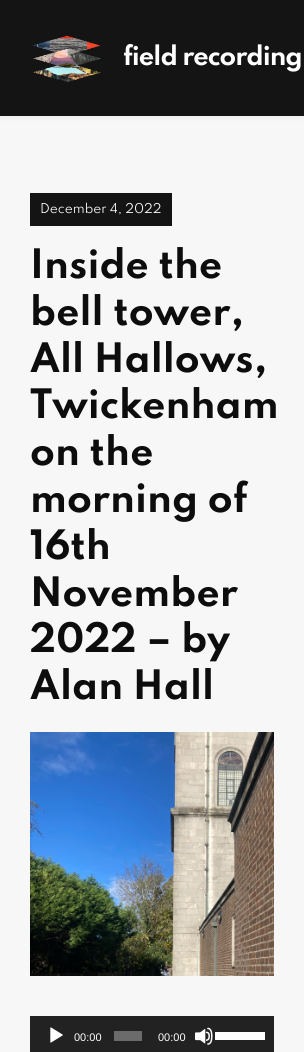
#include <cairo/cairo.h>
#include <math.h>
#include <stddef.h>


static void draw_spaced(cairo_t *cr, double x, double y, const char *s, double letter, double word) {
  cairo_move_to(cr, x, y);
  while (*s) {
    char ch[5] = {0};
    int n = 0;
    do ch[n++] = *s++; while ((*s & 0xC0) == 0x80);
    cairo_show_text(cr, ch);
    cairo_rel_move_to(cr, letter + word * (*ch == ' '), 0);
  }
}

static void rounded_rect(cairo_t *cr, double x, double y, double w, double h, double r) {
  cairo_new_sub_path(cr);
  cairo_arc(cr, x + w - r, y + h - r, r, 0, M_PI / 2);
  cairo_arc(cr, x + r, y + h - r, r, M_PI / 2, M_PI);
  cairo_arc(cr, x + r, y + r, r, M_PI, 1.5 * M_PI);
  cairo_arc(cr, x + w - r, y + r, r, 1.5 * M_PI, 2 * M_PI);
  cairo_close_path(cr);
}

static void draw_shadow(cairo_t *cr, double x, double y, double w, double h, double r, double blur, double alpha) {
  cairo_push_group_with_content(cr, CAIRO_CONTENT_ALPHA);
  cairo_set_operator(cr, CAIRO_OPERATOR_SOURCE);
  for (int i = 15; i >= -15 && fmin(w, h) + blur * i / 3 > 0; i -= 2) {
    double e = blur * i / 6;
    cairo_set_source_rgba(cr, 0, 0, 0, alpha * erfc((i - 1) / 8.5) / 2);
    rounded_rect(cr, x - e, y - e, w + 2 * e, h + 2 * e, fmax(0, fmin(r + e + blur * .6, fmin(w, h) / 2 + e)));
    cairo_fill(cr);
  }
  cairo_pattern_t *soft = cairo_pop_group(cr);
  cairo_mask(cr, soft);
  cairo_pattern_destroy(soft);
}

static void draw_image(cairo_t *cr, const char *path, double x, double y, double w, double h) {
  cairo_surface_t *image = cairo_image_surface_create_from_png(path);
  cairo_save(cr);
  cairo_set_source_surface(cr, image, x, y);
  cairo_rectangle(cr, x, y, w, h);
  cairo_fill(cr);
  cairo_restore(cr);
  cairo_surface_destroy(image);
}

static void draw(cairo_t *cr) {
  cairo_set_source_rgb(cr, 247 / 255.0, 247 / 255.0, 247 / 255.0);
  cairo_paint(cr);
  cairo_set_source_rgb(cr, 0, 0, 0);
  draw_shadow(cr, 0, 0, 304, 116, 0, 4, 0.07);
  cairo_set_source_rgb(cr, 20 / 255.0, 20 / 255.0, 20 / 255.0);
  cairo_rectangle(cr, 0, 0, 304, 116);
  cairo_fill(cr);
  draw_image(cr, "images/1.png", 32, 35, 69, 47);
  cairo_rectangle(cr, 30, 193, 142, 33);
  cairo_fill(cr);
  draw_image(cr, "images/2.png", 30, 732, 244, 244);
  cairo_set_source_rgb(cr, 34 / 255.0, 34 / 255.0, 34 / 255.0);
  cairo_rectangle(cr, 30, 1016, 244, 36);
  cairo_fill(cr);
  draw_image(cr, "images/3.png", 50, 1027, 13, 16);
  cairo_set_source_rgb(cr, 107 / 255.0, 107 / 255.0, 107 / 255.0);
  cairo_rectangle(cr, 114, 1031, 28, 10);
  cairo_fill(cr);
  draw_image(cr, "images/4.png", 195, 1027, 18, 18);
  cairo_set_source_rgb(cr, 1, 1, 1);
  cairo_rectangle(cr, 215, 1032, 50, 8);
  cairo_fill(cr);
  cairo_select_font_face(cr, "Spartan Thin", CAIRO_FONT_SLANT_NORMAL, CAIRO_FONT_WEIGHT_BOLD);
  cairo_set_font_size(cr, 24);
  draw_spaced(cr, 123, 65, "field recording", -1, 0);
  cairo_select_font_face(cr, "Spartan Thin", CAIRO_FONT_SLANT_NORMAL, CAIRO_FONT_WEIGHT_NORMAL);
  cairo_set_font_size(cr, 12);
  cairo_move_to(cr, 40, 213);
  cairo_show_text(cr, "December 4, 2022");
  cairo_select_font_face(cr, "Spartan Thin", CAIRO_FONT_SLANT_NORMAL, CAIRO_FONT_WEIGHT_BOLD);
  cairo_set_font_size(cr, 36);
  cairo_set_source_rgb(cr, 13 / 255.0, 13 / 255.0, 13 / 255.0);
  cairo_move_to(cr, 30, 278);
  cairo_show_text(cr, "Inside the");
  cairo_move_to(cr, 30, 325);
  cairo_show_text(cr, "bell tower,");
  cairo_move_to(cr, 30, 372);
  cairo_show_text(cr, "All Hallows,");
  cairo_move_to(cr, 30, 418);
  cairo_show_text(cr, "Twickenham");
  cairo_move_to(cr, 30, 465);
  cairo_show_text(cr, "on the");
  cairo_move_to(cr, 30, 512);
  cairo_show_text(cr, "morning of");
  cairo_move_to(cr, 30, 559);
  cairo_show_text(cr, "16th");
  cairo_move_to(cr, 30, 606);
  cairo_show_text(cr, "November");
  cairo_move_to(cr, 30, 652);
  cairo_show_text(cr, "2022 – by");
  cairo_move_to(cr, 30, 699);
  cairo_show_text(cr, "Alan Hall");
  cairo_select_font_face(cr, "Liberation Sans", CAIRO_FONT_SLANT_NORMAL, CAIRO_FONT_WEIGHT_NORMAL);
  cairo_set_font_size(cr, 11);
  cairo_set_source_rgb(cr, 1, 1, 1);
  cairo_move_to(cr, 74, 1041);
  cairo_show_text(cr, "00:00");
  cairo_move_to(cr, 158, 1041);
  cairo_show_text(cr, "00:00");
}

int main(void) {
  cairo_surface_t *surface = cairo_image_surface_create(CAIRO_FORMAT_RGB24, 304, 1052);
  cairo_t *cr = cairo_create(surface);
  cairo_font_options_t *options = cairo_font_options_create();
  cairo_font_options_set_hint_metrics(options, CAIRO_HINT_METRICS_OFF);
  cairo_font_options_set_hint_style(options, CAIRO_HINT_STYLE_NONE);
  cairo_set_font_options(cr, options);
  cairo_set_miter_limit(cr, 4);
  draw(cr);
  cairo_surface_write_to_png(surface, "out.png");
  cairo_font_options_destroy(options);
  cairo_destroy(cr);
  cairo_surface_destroy(surface);
  return 0;
}
